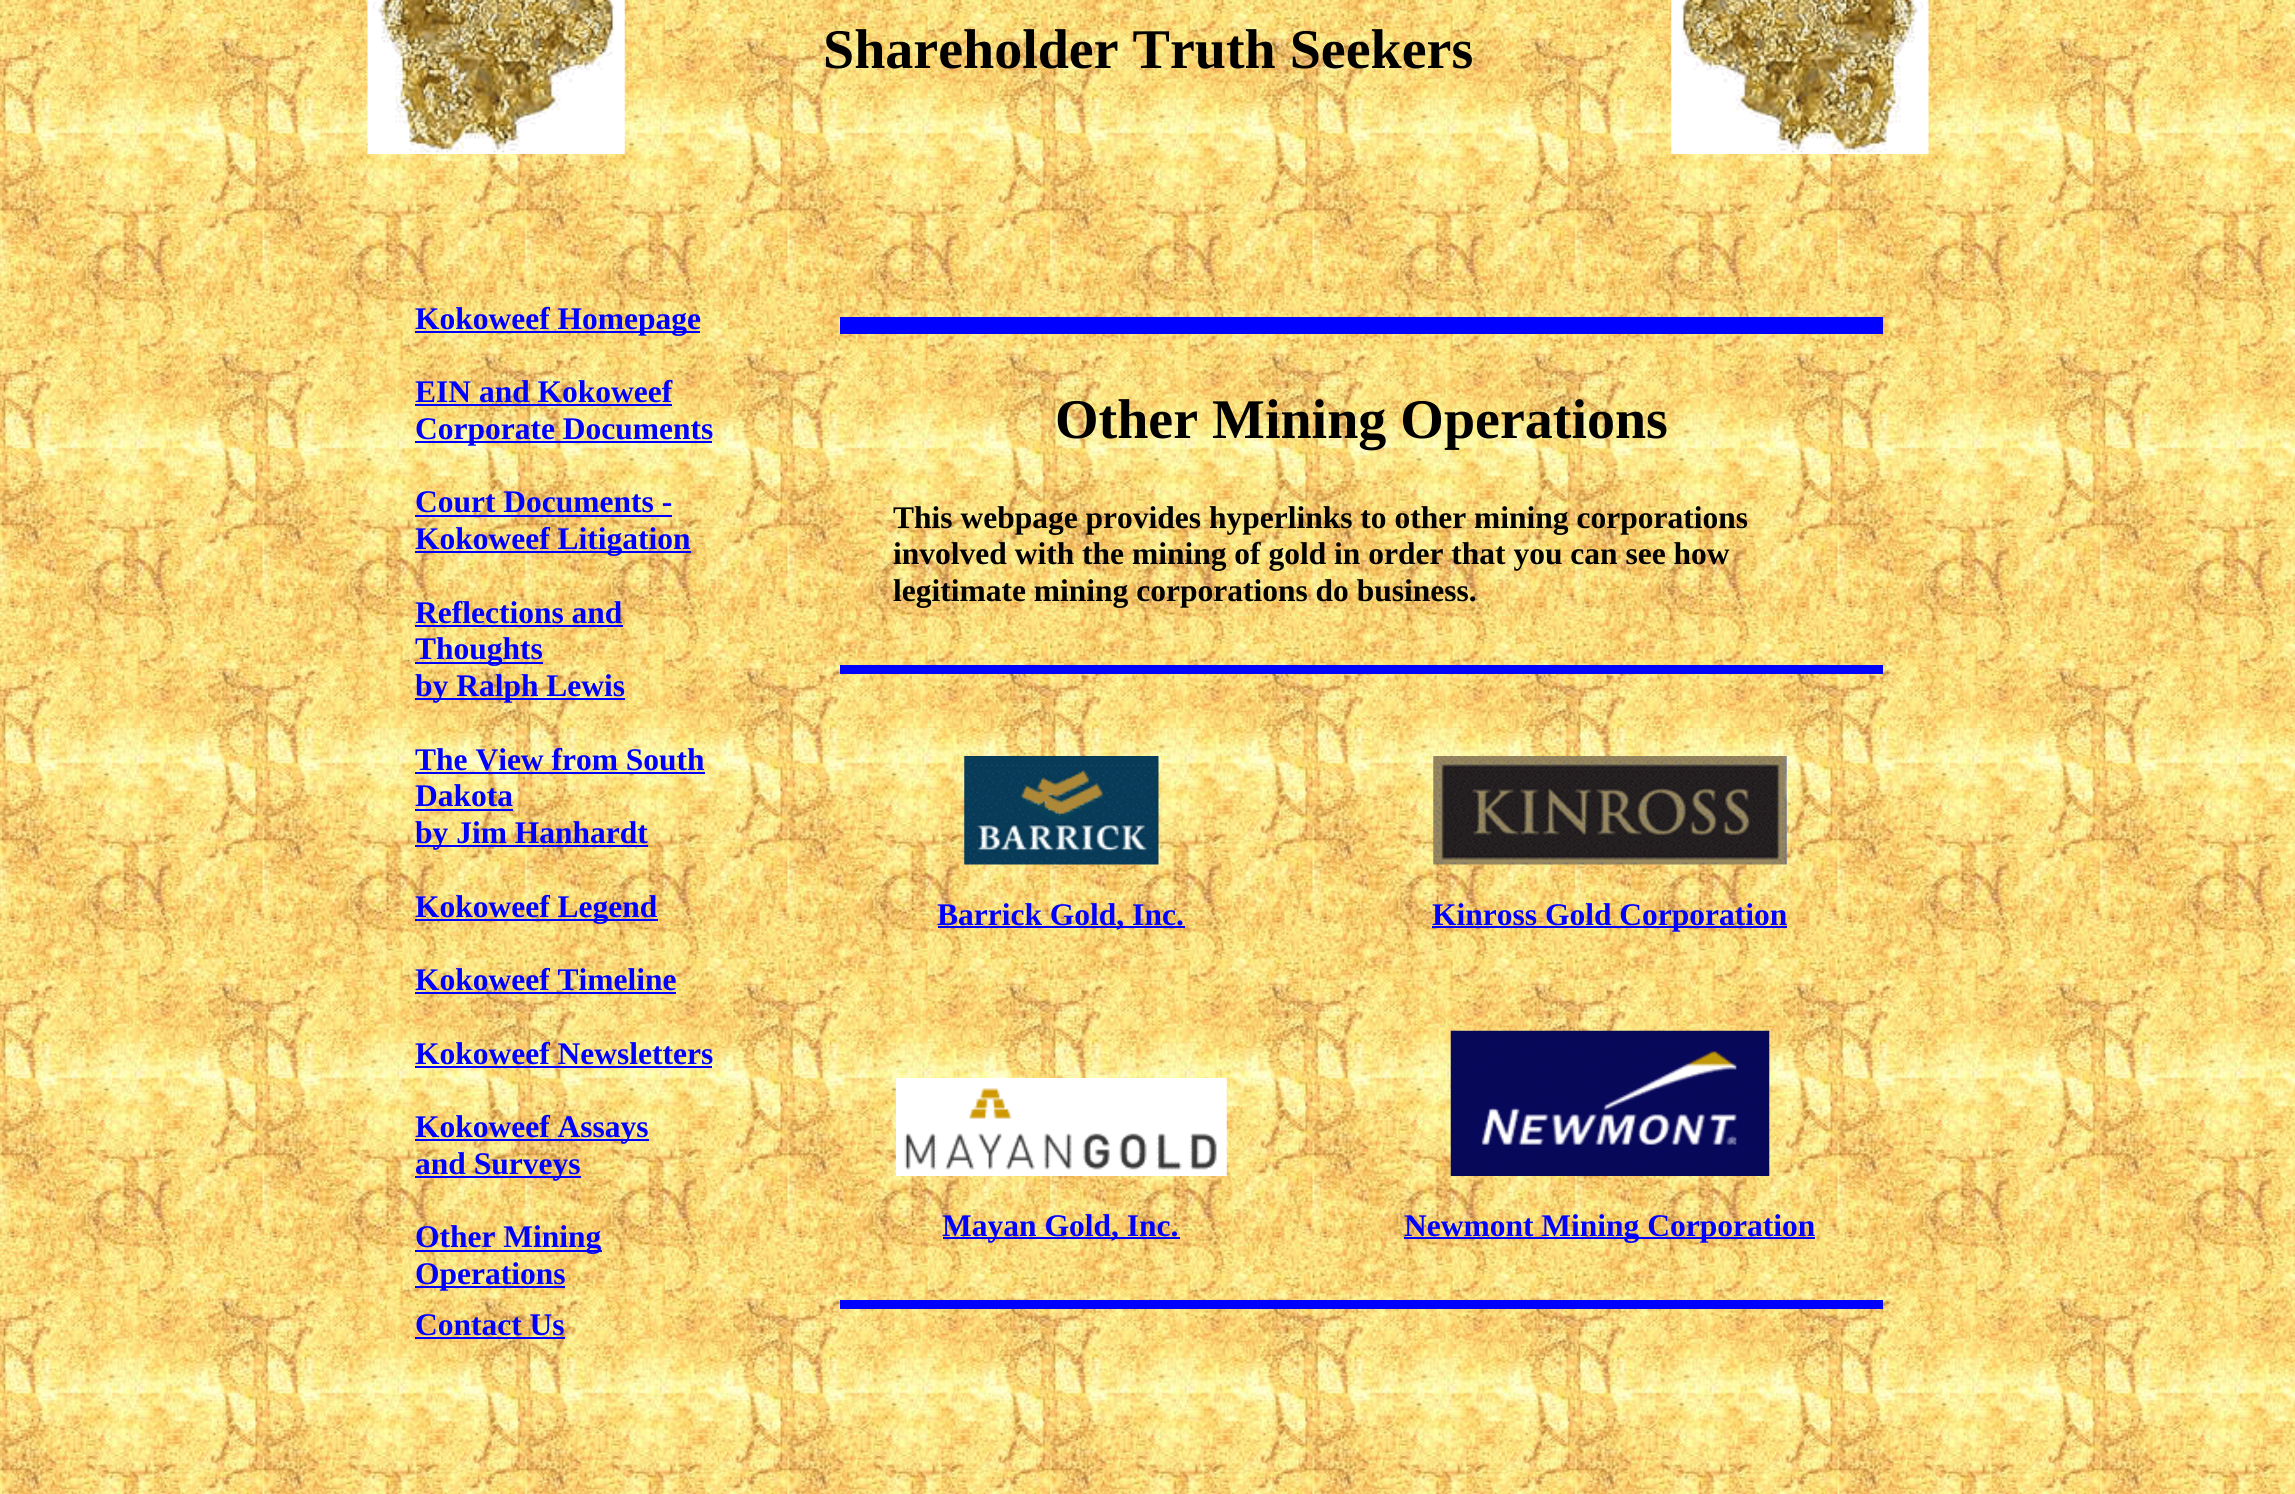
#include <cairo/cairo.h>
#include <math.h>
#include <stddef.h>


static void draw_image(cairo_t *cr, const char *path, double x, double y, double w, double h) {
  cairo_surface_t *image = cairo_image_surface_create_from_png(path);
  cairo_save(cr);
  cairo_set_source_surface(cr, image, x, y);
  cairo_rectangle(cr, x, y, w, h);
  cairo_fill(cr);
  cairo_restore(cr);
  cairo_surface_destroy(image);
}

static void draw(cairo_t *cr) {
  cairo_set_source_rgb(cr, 1, 1, 1);
  cairo_paint(cr);
  draw_image(cr, "images/1.png", 0, 0, 2295, 1494);
  draw_image(cr, "images/2.png", 367, 0, 258, 154);
  draw_image(cr, "images/3.png", 1671, 0, 258, 154);
  cairo_set_source_rgb(cr, 0, 0, 1);
  cairo_rectangle(cr, 415, 331, 285, 2);
  cairo_fill(cr);
  cairo_rectangle(cr, 415, 404, 257, 2);
  cairo_fill(cr);
  cairo_rectangle(cr, 415, 441, 297, 2);
  cairo_fill(cr);
  cairo_rectangle(cr, 415, 515, 257, 2);
  cairo_fill(cr);
  cairo_rectangle(cr, 415, 551, 276, 2);
  cairo_fill(cr);
  cairo_rectangle(cr, 415, 625, 208, 2);
  cairo_fill(cr);
  cairo_rectangle(cr, 415, 662, 128, 2);
  cairo_fill(cr);
  cairo_rectangle(cr, 415, 698, 210, 2);
  cairo_fill(cr);
  cairo_rectangle(cr, 415, 772, 290, 2);
  cairo_fill(cr);
  cairo_rectangle(cr, 415, 809, 98, 2);
  cairo_fill(cr);
  cairo_rectangle(cr, 415, 845, 233, 2);
  cairo_fill(cr);
  cairo_rectangle(cr, 415, 919, 243, 2);
  cairo_fill(cr);
  cairo_rectangle(cr, 415, 992, 261, 2);
  cairo_fill(cr);
  cairo_rectangle(cr, 415, 1066, 297, 2);
  cairo_fill(cr);
  cairo_rectangle(cr, 415, 1139, 234, 2);
  cairo_fill(cr);
  cairo_rectangle(cr, 415, 1176, 166, 2);
  cairo_fill(cr);
  cairo_rectangle(cr, 415, 1250, 187, 2);
  cairo_fill(cr);
  cairo_rectangle(cr, 415, 1286, 150, 2);
  cairo_fill(cr);
  cairo_rectangle(cr, 415, 1337, 150, 2);
  cairo_fill(cr);
  cairo_rectangle(cr, 840, 317, 1043, 17);
  cairo_fill(cr);
  cairo_rectangle(cr, 840, 665, 1043, 9);
  cairo_fill(cr);
  draw_image(cr, "images/4.png", 964, 756, 195, 109);
  cairo_rectangle(cr, 938, 926, 247, 2);
  cairo_fill(cr);
  draw_image(cr, "images/5.png", 1433, 756, 354, 109);
  cairo_rectangle(cr, 1432, 926, 355, 2);
  cairo_fill(cr);
  draw_image(cr, "images/6.png", 896, 1078, 331, 98);
  cairo_rectangle(cr, 943, 1237, 237, 2);
  cairo_fill(cr);
  draw_image(cr, "images/7.png", 1450, 1030, 320, 146);
  cairo_rectangle(cr, 1404, 1237, 411, 2);
  cairo_fill(cr);
  cairo_rectangle(cr, 840, 1300, 1043, 9);
  cairo_fill(cr);
  cairo_select_font_face(cr, "Liberation Serif", CAIRO_FONT_SLANT_NORMAL, CAIRO_FONT_WEIGHT_BOLD);
  cairo_set_font_size(cr, 56);
  cairo_set_source_rgb(cr, 0, 0, 0);
  cairo_move_to(cr, 823, 68);
  cairo_show_text(cr, "Shareholder Truth Seekers");
  cairo_set_font_size(cr, 31.5);
  cairo_set_source_rgb(cr, 0, 0, 1);
  cairo_move_to(cr, 415, 329);
  cairo_show_text(cr, "Kokoweef Homepage");
  cairo_move_to(cr, 415, 402);
  cairo_show_text(cr, "EIN and Kokoweef");
  cairo_move_to(cr, 415, 439);
  cairo_show_text(cr, "Corporate Documents");
  cairo_move_to(cr, 415, 512);
  cairo_show_text(cr, "Court Documents -");
  cairo_move_to(cr, 415, 549);
  cairo_show_text(cr, "Kokoweef Litigation");
  cairo_move_to(cr, 415, 623);
  cairo_show_text(cr, "Reflections and");
  cairo_move_to(cr, 415, 659);
  cairo_show_text(cr, "Thoughts");
  cairo_move_to(cr, 415, 696);
  cairo_show_text(cr, "by Ralph Lewis");
  cairo_move_to(cr, 415, 770);
  cairo_show_text(cr, "The View from South");
  cairo_move_to(cr, 415, 806);
  cairo_show_text(cr, "Dakota");
  cairo_move_to(cr, 415, 843);
  cairo_show_text(cr, "by Jim Hanhardt");
  cairo_move_to(cr, 415, 917);
  cairo_show_text(cr, "Kokoweef Legend");
  cairo_move_to(cr, 415, 990);
  cairo_show_text(cr, "Kokoweef Timeline");
  cairo_move_to(cr, 415, 1064);
  cairo_show_text(cr, "Kokoweef Newsletters");
  cairo_move_to(cr, 415, 1137);
  cairo_show_text(cr, "Kokoweef Assays");
  cairo_move_to(cr, 415, 1174);
  cairo_show_text(cr, "and Surveys");
  cairo_move_to(cr, 415, 1247);
  cairo_show_text(cr, "Other Mining");
  cairo_move_to(cr, 415, 1284);
  cairo_show_text(cr, "Operations");
  cairo_move_to(cr, 415, 1335);
  cairo_show_text(cr, "Contact Us");
  cairo_set_font_size(cr, 56);
  cairo_set_source_rgb(cr, 0, 0, 0);
  cairo_move_to(cr, 1055, 438);
  cairo_show_text(cr, "Other Mining Operations");
  cairo_set_font_size(cr, 31.5);
  cairo_move_to(cr, 893, 528);
  cairo_show_text(cr, "This webpage provides hyperlinks to other mining corporations");
  cairo_move_to(cr, 893, 564);
  cairo_show_text(cr, "involved with the mining of gold in order that you can see how");
  cairo_move_to(cr, 893, 601);
  cairo_show_text(cr, "legitimate mining corporations do business.");
  cairo_set_source_rgb(cr, 0, 0, 1);
  cairo_move_to(cr, 937, 925);
  cairo_show_text(cr, "Barrick Gold, Inc.");
  cairo_move_to(cr, 1432, 925);
  cairo_show_text(cr, "Kinross Gold Corporation");
  cairo_move_to(cr, 942, 1236);
  cairo_show_text(cr, "Mayan Gold, Inc.");
  cairo_move_to(cr, 1404, 1236);
  cairo_show_text(cr, "Newmont Mining Corporation");
}

int main(void) {
  cairo_surface_t *surface = cairo_image_surface_create(CAIRO_FORMAT_RGB24, 2295, 1494);
  cairo_t *cr = cairo_create(surface);
  cairo_font_options_t *options = cairo_font_options_create();
  cairo_font_options_set_hint_metrics(options, CAIRO_HINT_METRICS_OFF);
  cairo_font_options_set_hint_style(options, CAIRO_HINT_STYLE_NONE);
  cairo_set_font_options(cr, options);
  cairo_set_miter_limit(cr, 4);
  draw(cr);
  cairo_surface_write_to_png(surface, "out.png");
  cairo_font_options_destroy(options);
  cairo_destroy(cr);
  cairo_surface_destroy(surface);
  return 0;
}
